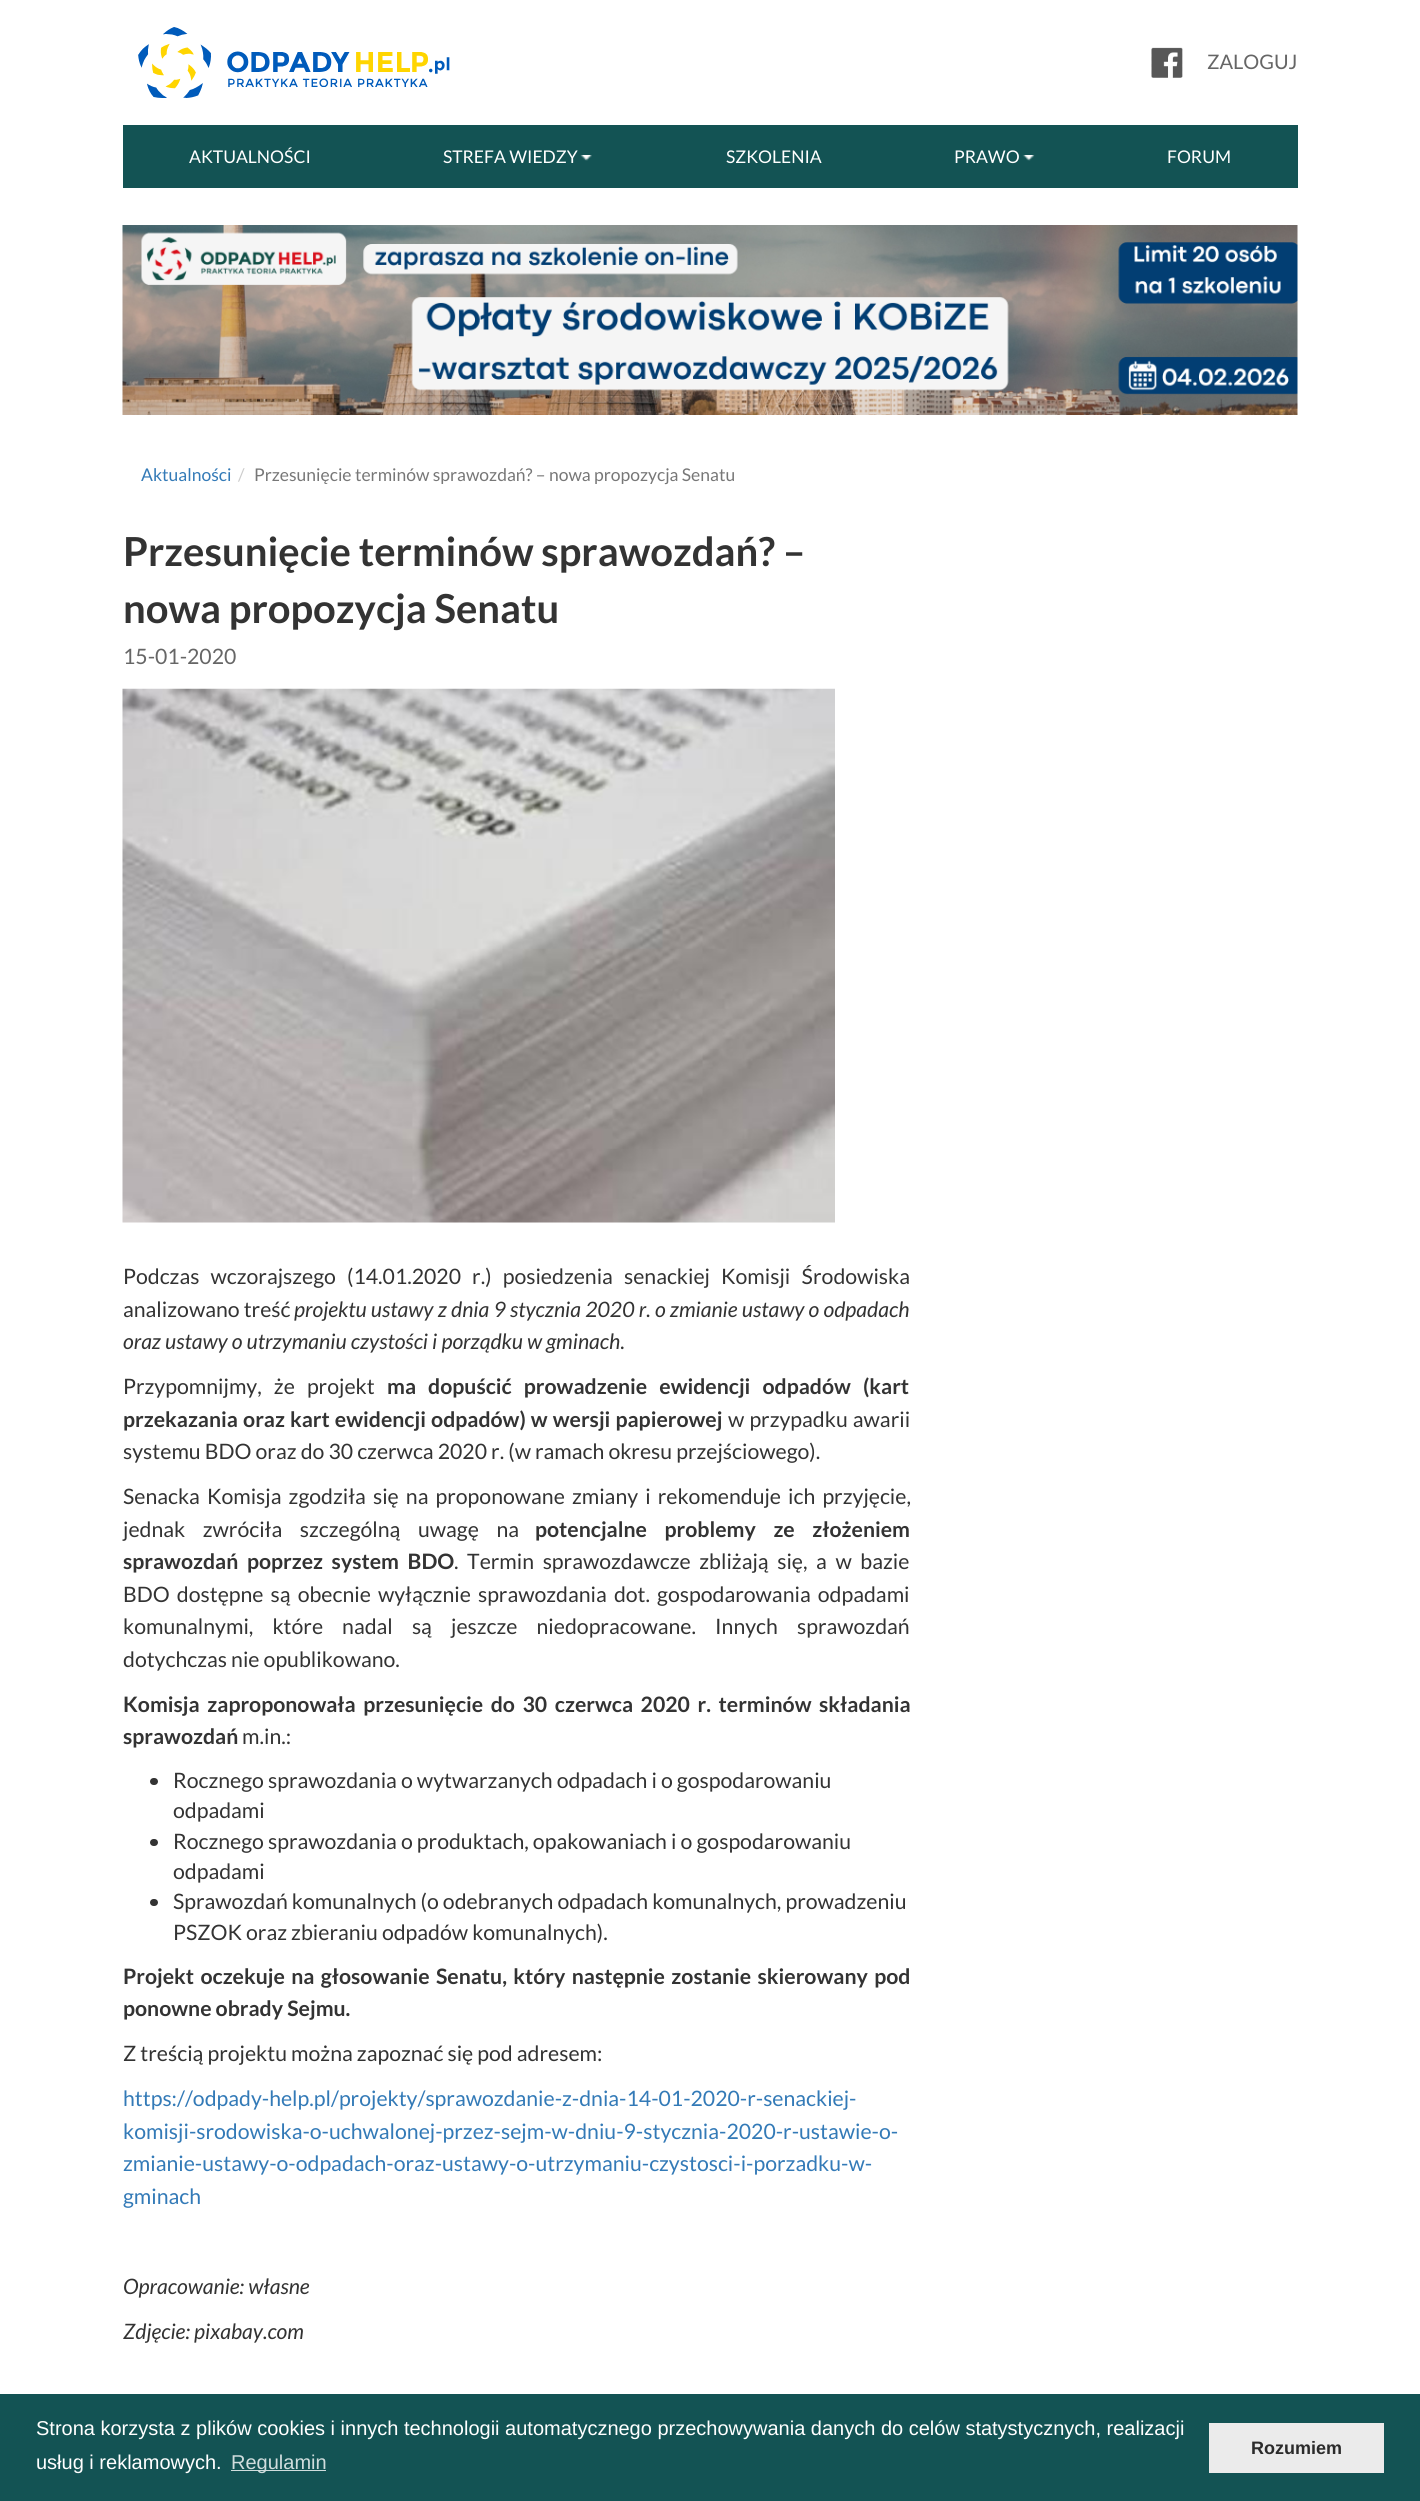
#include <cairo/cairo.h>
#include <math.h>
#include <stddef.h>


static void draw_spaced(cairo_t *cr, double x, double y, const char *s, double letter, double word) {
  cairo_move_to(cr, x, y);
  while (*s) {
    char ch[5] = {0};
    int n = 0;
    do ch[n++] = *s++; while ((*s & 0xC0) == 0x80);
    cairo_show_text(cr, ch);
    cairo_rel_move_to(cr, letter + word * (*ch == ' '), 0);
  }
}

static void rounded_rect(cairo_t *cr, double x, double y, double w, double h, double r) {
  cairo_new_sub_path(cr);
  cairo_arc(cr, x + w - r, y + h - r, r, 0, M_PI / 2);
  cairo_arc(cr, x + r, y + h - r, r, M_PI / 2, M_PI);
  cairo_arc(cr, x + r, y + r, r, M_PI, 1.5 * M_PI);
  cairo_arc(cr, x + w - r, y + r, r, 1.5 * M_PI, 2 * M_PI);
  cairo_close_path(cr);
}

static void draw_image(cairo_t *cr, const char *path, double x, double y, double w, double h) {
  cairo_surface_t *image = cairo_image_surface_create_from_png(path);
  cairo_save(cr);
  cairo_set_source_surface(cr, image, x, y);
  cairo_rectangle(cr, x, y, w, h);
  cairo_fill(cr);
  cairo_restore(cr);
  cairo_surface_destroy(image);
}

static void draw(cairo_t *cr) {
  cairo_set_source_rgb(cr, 1, 1, 1);
  cairo_paint(cr);
  draw_image(cr, "images/1.png", 138, 27, 312, 71);
  draw_image(cr, "images/2.png", 1151, 47, 32, 31);
  cairo_set_source_rgb(cr, 19 / 255.0, 83 / 255.0, 84 / 255.0);
  cairo_rectangle(cr, 123, 125, 1175, 63);
  cairo_fill(cr);
  draw_image(cr, "images/3.png", 580, 155, 12, 6);
  draw_image(cr, "images/4.png", 1022, 155, 13, 6);
  draw_image(cr, "images/5.png", 122, 225, 1176, 190);
  draw_image(cr, "images/6.png", 122, 688, 713, 535);
  cairo_set_source_rgb(cr, 51 / 255.0, 51 / 255.0, 51 / 255.0);
  rounded_rect(cr, 150, 1778, 8, 7, 3.5);
  cairo_fill(cr);
  rounded_rect(cr, 150, 1839, 8, 7, 3.5);
  cairo_fill(cr);
  rounded_rect(cr, 150, 1899, 8, 7, 3.5);
  cairo_fill(cr);
  cairo_set_source_rgb(cr, 19 / 255.0, 83 / 255.0, 84 / 255.0);
  cairo_rectangle(cr, 0, 2394, 1420, 107);
  cairo_fill(cr);
  cairo_set_source_rgb(cr, 208 / 255.0, 221 / 255.0, 221 / 255.0);
  cairo_rectangle(cr, 231, 2470, 95, 1);
  cairo_fill(cr);
  cairo_set_source_rgb(cr, 235 / 255.0, 235 / 255.0, 235 / 255.0);
  cairo_rectangle(cr, 1209, 2423, 175, 50);
  cairo_fill(cr);
  cairo_select_font_face(cr, "Lato", CAIRO_FONT_SLANT_NORMAL, CAIRO_FONT_WEIGHT_NORMAL);
  cairo_set_font_size(cr, 20);
  cairo_set_source_rgb(cr, 102 / 255.0, 102 / 255.0, 102 / 255.0);
  cairo_move_to(cr, 1207, 69);
  cairo_show_text(cr, "ZALOGUJ");
  cairo_set_font_size(cr, 17.5);
  cairo_set_source_rgb(cr, 1, 1, 1);
  cairo_move_to(cr, 189, 163);
  cairo_show_text(cr, "AKTUALNOŚCI");
  cairo_move_to(cr, 443, 163);
  cairo_show_text(cr, "STREFA WIEDZY");
  cairo_move_to(cr, 726, 163);
  cairo_show_text(cr, "SZKOLENIA");
  cairo_move_to(cr, 954, 163);
  cairo_show_text(cr, "PRAWO");
  cairo_move_to(cr, 1167, 163);
  cairo_show_text(cr, "FORUM");
  cairo_set_source_rgb(cr, 51 / 255.0, 122 / 255.0, 183 / 255.0);
  cairo_move_to(cr, 141, 481);
  cairo_show_text(cr, "Aktualności");
  cairo_set_source_rgb(cr, 204 / 255.0, 204 / 255.0, 204 / 255.0);
  cairo_move_to(cr, 238, 481);
  cairo_show_text(cr, "/");
  cairo_set_source_rgb(cr, 119 / 255.0, 119 / 255.0, 119 / 255.0);
  cairo_move_to(cr, 254, 481);
  cairo_show_text(cr, "Przesunięcie terminów sprawozdań? – nowa propozycja Senatu");
  cairo_select_font_face(cr, "Lato", CAIRO_FONT_SLANT_NORMAL, CAIRO_FONT_WEIGHT_BOLD);
  cairo_set_font_size(cr, 40);
  cairo_set_source_rgb(cr, 51 / 255.0, 51 / 255.0, 51 / 255.0);
  cairo_move_to(cr, 123, 566);
  cairo_show_text(cr, "Przesunięcie terminów sprawozdań? –");
  cairo_move_to(cr, 123, 623);
  cairo_show_text(cr, "nowa propozycja Senatu");
  cairo_select_font_face(cr, "Lato", CAIRO_FONT_SLANT_NORMAL, CAIRO_FONT_WEIGHT_NORMAL);
  cairo_set_font_size(cr, 21.25);
  cairo_set_source_rgb(cr, 102 / 255.0, 102 / 255.0, 102 / 255.0);
  cairo_move_to(cr, 123, 664);
  cairo_show_text(cr, "15-01-2020");
  cairo_set_source_rgb(cr, 51 / 255.0, 51 / 255.0, 51 / 255.0);
  draw_spaced(cr, 123, 1284, "Podczas wczorajszego (14.01.2020 r.) posiedzenia senackiej Komisji Środowiska", 0, 7);
  cairo_move_to(cr, 123, 1317);
  cairo_show_text(cr, "analizowano treść");
  cairo_select_font_face(cr, "Lato", CAIRO_FONT_SLANT_ITALIC, CAIRO_FONT_WEIGHT_NORMAL);
  draw_spaced(cr, 294, 1317, "projektu ustawy z dnia 9 stycznia 2020 r. o zmianie ustawy o odpadach", 0, 0.1);
  cairo_move_to(cr, 123, 1349);
  cairo_show_text(cr, "oraz ustawy o utrzymaniu czystości i porządku w gminach");
  cairo_select_font_face(cr, "Lato", CAIRO_FONT_SLANT_NORMAL, CAIRO_FONT_WEIGHT_NORMAL);
  cairo_move_to(cr, 620, 1349);
  cairo_show_text(cr, ".");
  draw_spaced(cr, 123, 1394, "Przypomnijmy, że projekt", 0, 8);
  cairo_select_font_face(cr, "Lato", CAIRO_FONT_SLANT_NORMAL, CAIRO_FONT_WEIGHT_BOLD);
  draw_spaced(cr, 387, 1394, "ma dopuścić prowadzenie ewidencji odpadów (kart", 0, 8);
  draw_spaced(cr, 123, 1427, "przekazania oraz kart ewidencji odpadów) w wersji papierowej", 0, 1);
  cairo_select_font_face(cr, "Lato", CAIRO_FONT_SLANT_NORMAL, CAIRO_FONT_WEIGHT_NORMAL);
  draw_spaced(cr, 728, 1427, "w przypadku awarii", 0, 1);
  cairo_move_to(cr, 123, 1459);
  cairo_show_text(cr, "systemu BDO oraz do 30 czerwca 2020 r. (w ramach okresu przejściowego).");
  draw_spaced(cr, 123, 1504, "Senacka Komisja zgodziła się na proponowane zmiany i rekomenduje ich przyjęcie,", 0, 3);
  draw_spaced(cr, 123, 1537, "jednak zwróciła szczególną uwagę na", 0, 13.5);
  cairo_select_font_face(cr, "Lato", CAIRO_FONT_SLANT_NORMAL, CAIRO_FONT_WEIGHT_BOLD);
  draw_spaced(cr, 535, 1537, "potencjalne problemy ze złożeniem", 0, 13.5);
  draw_spaced(cr, 123, 1569, "sprawozdań poprzez system BDO", 0, 4.5);
  cairo_select_font_face(cr, "Lato", CAIRO_FONT_SLANT_NORMAL, CAIRO_FONT_WEIGHT_NORMAL);
  draw_spaced(cr, 454, 1569, ". Termin sprawozdawcze zbliżają się, a w bazie", 0, 4.5);
  draw_spaced(cr, 123, 1602, "BDO dostępne są obecnie wyłącznie sprawozdania dot. gospodarowania odpadami", 0, 3);
  draw_spaced(cr, 123, 1634, "komunalnymi, które nadal są jeszcze niedopracowane. Innych sprawozdań", 0, 15);
  cairo_move_to(cr, 123, 1667);
  cairo_show_text(cr, "dotychczas nie opublikowano.");
  cairo_select_font_face(cr, "Lato", CAIRO_FONT_SLANT_NORMAL, CAIRO_FONT_WEIGHT_BOLD);
  draw_spaced(cr, 123, 1712, "Komisja zaproponowała przesunięcie do 30 czerwca 2020 r. terminów składania", 0, 3.5);
  cairo_move_to(cr, 123, 1744);
  cairo_show_text(cr, "sprawozdań");
  cairo_select_font_face(cr, "Lato", CAIRO_FONT_SLANT_NORMAL, CAIRO_FONT_WEIGHT_NORMAL);
  cairo_move_to(cr, 242, 1744);
  cairo_show_text(cr, "m.in.:");
  cairo_move_to(cr, 173, 1788);
  cairo_show_text(cr, "Rocznego sprawozdania o wytwarzanych odpadach i o gospodarowaniu");
  cairo_move_to(cr, 173, 1818);
  cairo_show_text(cr, "odpadami");
  cairo_move_to(cr, 173, 1849);
  cairo_show_text(cr, "Rocznego sprawozdania o produktach, opakowaniach i o gospodarowaniu");
  cairo_move_to(cr, 173, 1879);
  cairo_show_text(cr, "odpadami");
  cairo_move_to(cr, 173, 1909);
  cairo_show_text(cr, "Sprawozdań komunalnych (o odebranych odpadach komunalnych, prowadzeniu");
  cairo_move_to(cr, 173, 1940);
  cairo_show_text(cr, "PSZOK oraz zbieraniu odpadów komunalnych).");
  cairo_select_font_face(cr, "Lato", CAIRO_FONT_SLANT_NORMAL, CAIRO_FONT_WEIGHT_BOLD);
  draw_spaced(cr, 123, 1984, "Projekt oczekuje na głosowanie Senatu, który następnie zostanie skierowany pod", 0, 2.25);
  cairo_move_to(cr, 123, 2016);
  cairo_show_text(cr, "ponowne obrady Sejmu.");
  cairo_select_font_face(cr, "Lato", CAIRO_FONT_SLANT_NORMAL, CAIRO_FONT_WEIGHT_NORMAL);
  cairo_move_to(cr, 123, 2061);
  cairo_show_text(cr, "Z treścią projektu można zapoznać się pod adresem:");
  cairo_set_source_rgb(cr, 51 / 255.0, 122 / 255.0, 183 / 255.0);
  cairo_move_to(cr, 123, 2106);
  cairo_show_text(cr, "https://odpady-help.pl/projekty/sprawozdanie-z-dnia-14-01-2020-r-senackiej-");
  cairo_move_to(cr, 123, 2139);
  cairo_show_text(cr, "komisji-srodowiska-o-uchwalonej-przez-sejm-w-dniu-9-stycznia-2020-r-ustawie-o-");
  cairo_move_to(cr, 123, 2171);
  cairo_show_text(cr, "zmianie-ustawy-o-odpadach-oraz-ustawy-o-utrzymaniu-czystosci-i-porzadku-w-");
  cairo_move_to(cr, 123, 2204);
  cairo_show_text(cr, "gminach");
  cairo_select_font_face(cr, "Lato", CAIRO_FONT_SLANT_ITALIC, CAIRO_FONT_WEIGHT_NORMAL);
  cairo_set_source_rgb(cr, 51 / 255.0, 51 / 255.0, 51 / 255.0);
  cairo_move_to(cr, 123, 2294);
  cairo_show_text(cr, "Opracowanie: własne");
  cairo_move_to(cr, 123, 2339);
  cairo_show_text(cr, "Zdjęcie: pixabay.com");
  cairo_select_font_face(cr, "Liberation Sans", CAIRO_FONT_SLANT_NORMAL, CAIRO_FONT_WEIGHT_NORMAL);
  cairo_set_font_size(cr, 20);
  cairo_set_source_rgb(cr, 1, 1, 1);
  cairo_move_to(cr, 36, 2435);
  cairo_show_text(cr, "Strona korzysta z plików cookies i innych technologii automatycznego przechowywania danych do celów statystycznych, realizacji");
  cairo_move_to(cr, 36, 2469);
  cairo_show_text(cr, "usług i reklamowych.");
  cairo_set_source_rgb(cr, 208 / 255.0, 221 / 255.0, 221 / 255.0);
  cairo_move_to(cr, 231, 2469);
  cairo_show_text(cr, "Regulamin");
  cairo_select_font_face(cr, "Liberation Sans", CAIRO_FONT_SLANT_NORMAL, CAIRO_FONT_WEIGHT_BOLD);
  cairo_set_font_size(cr, 18);
  cairo_set_source_rgb(cr, 43 / 255.0, 43 / 255.0, 43 / 255.0);
  cairo_move_to(cr, 1251, 2454);
  cairo_show_text(cr, "Rozumiem");
}

int main(void) {
  cairo_surface_t *surface = cairo_image_surface_create(CAIRO_FORMAT_RGB24, 1420, 2501);
  cairo_t *cr = cairo_create(surface);
  cairo_font_options_t *options = cairo_font_options_create();
  cairo_font_options_set_hint_metrics(options, CAIRO_HINT_METRICS_OFF);
  cairo_font_options_set_hint_style(options, CAIRO_HINT_STYLE_NONE);
  cairo_set_font_options(cr, options);
  cairo_set_miter_limit(cr, 4);
  draw(cr);
  cairo_surface_write_to_png(surface, "out.png");
  cairo_font_options_destroy(options);
  cairo_destroy(cr);
  cairo_surface_destroy(surface);
  return 0;
}
